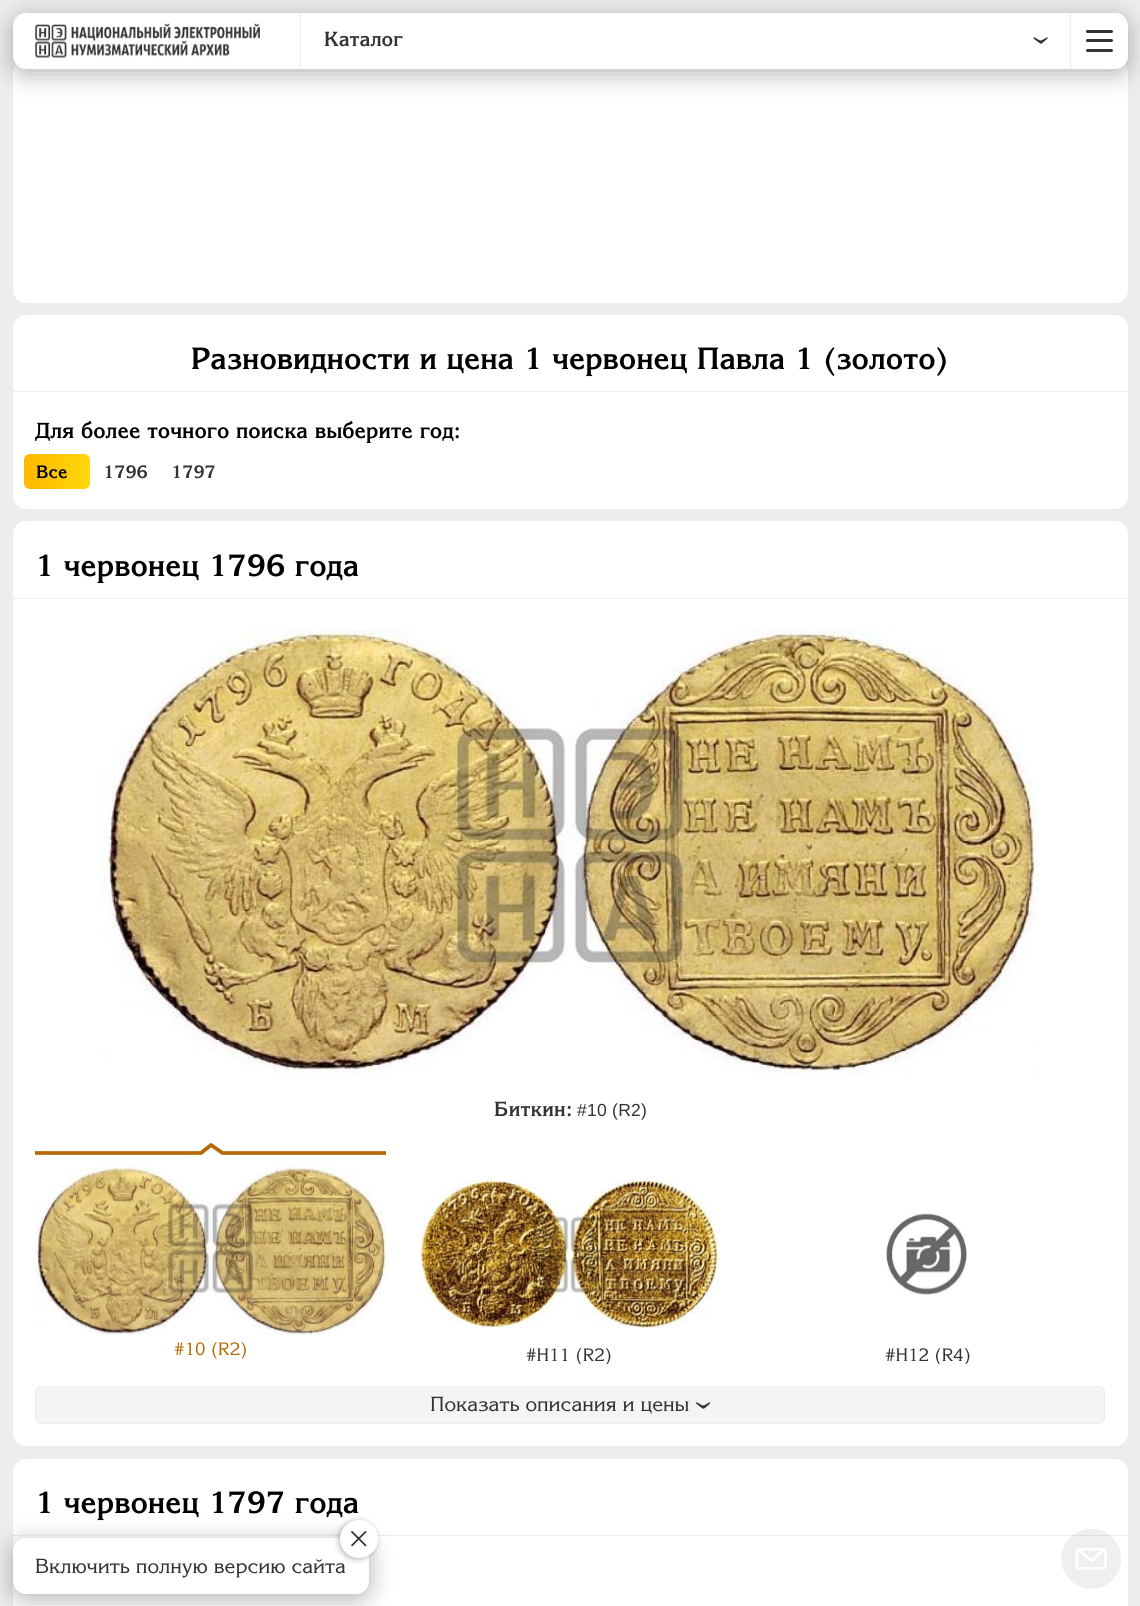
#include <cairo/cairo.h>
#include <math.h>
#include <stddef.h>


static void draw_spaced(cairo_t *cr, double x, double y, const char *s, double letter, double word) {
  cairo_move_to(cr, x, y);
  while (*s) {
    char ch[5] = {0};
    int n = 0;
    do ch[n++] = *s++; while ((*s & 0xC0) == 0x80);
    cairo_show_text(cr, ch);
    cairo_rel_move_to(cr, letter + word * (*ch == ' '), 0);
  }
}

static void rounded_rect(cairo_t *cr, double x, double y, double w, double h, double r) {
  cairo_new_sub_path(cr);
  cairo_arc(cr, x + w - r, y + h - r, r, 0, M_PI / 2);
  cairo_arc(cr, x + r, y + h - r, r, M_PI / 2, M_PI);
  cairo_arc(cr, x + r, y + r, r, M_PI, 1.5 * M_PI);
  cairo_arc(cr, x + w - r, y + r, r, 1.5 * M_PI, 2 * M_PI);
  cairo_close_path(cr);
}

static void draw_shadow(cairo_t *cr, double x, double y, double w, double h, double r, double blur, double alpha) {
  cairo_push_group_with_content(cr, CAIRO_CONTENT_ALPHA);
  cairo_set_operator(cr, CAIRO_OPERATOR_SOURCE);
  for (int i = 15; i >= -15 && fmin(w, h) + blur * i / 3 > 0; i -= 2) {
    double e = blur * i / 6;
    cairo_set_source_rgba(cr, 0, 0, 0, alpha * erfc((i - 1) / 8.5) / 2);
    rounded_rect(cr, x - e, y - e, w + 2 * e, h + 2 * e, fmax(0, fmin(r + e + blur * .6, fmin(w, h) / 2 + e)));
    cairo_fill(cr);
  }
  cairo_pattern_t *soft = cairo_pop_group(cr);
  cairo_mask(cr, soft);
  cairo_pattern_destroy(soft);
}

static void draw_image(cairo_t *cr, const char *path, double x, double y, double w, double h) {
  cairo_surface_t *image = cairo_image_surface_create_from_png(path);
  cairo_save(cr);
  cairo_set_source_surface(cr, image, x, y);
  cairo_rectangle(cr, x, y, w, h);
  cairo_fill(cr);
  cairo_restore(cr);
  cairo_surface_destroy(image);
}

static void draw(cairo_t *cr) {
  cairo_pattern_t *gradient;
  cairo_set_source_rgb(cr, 237 / 255.0, 237 / 255.0, 237 / 255.0);
  cairo_paint(cr);
  cairo_set_source_rgb(cr, 1, 1, 1);
  rounded_rect(cr, 13, 60, 1115, 243, 13);
  cairo_fill(cr);
  cairo_set_source_rgb(cr, 0, 0, 0);
  draw_shadow(cr, 13, 18, 1115, 56, 13, 12.5, 0.3);
  cairo_set_source_rgb(cr, 1, 1, 1);
  rounded_rect(cr, 13, 13, 1115, 56, 13);
  cairo_fill(cr);
  cairo_set_source_rgb(cr, 237 / 255.0, 237 / 255.0, 237 / 255.0);
  cairo_rectangle(cr, 1070, 13, 1, 56);
  cairo_fill(cr);
  cairo_set_source_rgb(cr, 51 / 255.0, 51 / 255.0, 51 / 255.0);
  rounded_rect(cr, 1086, 39, 27, 3, 1.5);
  cairo_fill(cr);
  rounded_rect(cr, 1086, 30, 27, 3, 1.5);
  cairo_fill(cr);
  rounded_rect(cr, 1086, 49, 27, 3, 1.5);
  cairo_fill(cr);
  cairo_set_source_rgb(cr, 237 / 255.0, 237 / 255.0, 237 / 255.0);
  cairo_rectangle(cr, 300, 13, 1, 56);
  cairo_fill(cr);
  draw_image(cr, "images/1.png", 35, 23, 225, 35);
  draw_image(cr, "images/2.png", 1033, 37, 15, 7);
  cairo_set_source_rgb(cr, 1, 1, 1);
  rounded_rect(cr, 13, 315, 1115, 194, 13);
  cairo_fill(cr);
  cairo_set_source_rgb(cr, 237 / 255.0, 237 / 255.0, 237 / 255.0);
  cairo_rectangle(cr, 13, 391, 1115, 1);
  cairo_fill(cr);
  gradient = cairo_pattern_create_linear(24, 471, 90, 471);
  cairo_pattern_add_color_stop_rgba(gradient, 0, 1, 184 / 255.0, 0, 1);
  cairo_pattern_add_color_stop_rgba(gradient, 1, 1, 216 / 255.0, 10 / 255.0, 1);
  cairo_set_source(cr, gradient);
  cairo_pattern_destroy(gradient);
  rounded_rect(cr, 24, 454, 66, 35, 6);
  cairo_fill(cr);
  cairo_set_source_rgb(cr, 1, 1, 1);
  rounded_rect(cr, 13, 521, 1115, 925, 13);
  cairo_fill(cr);
  cairo_set_source_rgb(cr, 237 / 255.0, 237 / 255.0, 237 / 255.0);
  cairo_rectangle(cr, 13, 598, 1115, 1);
  cairo_fill(cr);
  draw_image(cr, "images/3.png", 101, 629, 938, 446);
  cairo_save(cr);
  cairo_rectangle(cr, 35, 1143, 351, 12);
  cairo_clip(cr);
  cairo_new_path(cr);
  cairo_move_to(cr, -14, 1153);
  cairo_line_to(cr, 201, 1153);
  cairo_line_to(cr, 211, 1145);
  cairo_line_to(cr, 222.5, 1153);
  cairo_line_to(cr, 439, 1153);
  cairo_set_source_rgb(cr, 180 / 255.0, 106 / 255.0, 0);
  cairo_set_line_width(cr, 3.8);
  cairo_set_line_cap(cr, CAIRO_LINE_CAP_ROUND);
  cairo_set_line_join(cr, CAIRO_LINE_JOIN_ROUND);
  cairo_stroke(cr);
  cairo_restore(cr);
  draw_image(cr, "images/4.png", 35, 1167, 352, 168);
  draw_image(cr, "images/5.png", 420, 1180, 299, 149);
  draw_image(cr, "images/6.png", 886, 1213, 81, 82);
  cairo_set_source_rgb(cr, 244 / 255.0, 244 / 255.0, 244 / 255.0);
  rounded_rect(cr, 35.5, 1386.5, 1069, 37, 5.5);
  cairo_fill_preserve(cr);
  cairo_set_source_rgb(cr, 237 / 255.0, 237 / 255.0, 237 / 255.0);
  cairo_set_line_width(cr, 1);
  cairo_stroke(cr);
  draw_image(cr, "images/7.png", 696, 1402, 14, 7);
  cairo_set_source_rgb(cr, 1, 1, 1);
  rounded_rect(cr, 13, 1459, 1115, 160, 13);
  cairo_fill(cr);
  cairo_set_source_rgb(cr, 237 / 255.0, 237 / 255.0, 237 / 255.0);
  cairo_rectangle(cr, 13, 1535, 1115, 1);
  cairo_fill(cr);
  cairo_set_source_rgb(cr, 0, 0, 0);
  draw_shadow(cr, 13, 1543, 356, 56, 13, 12.5, 0.3);
  cairo_set_source_rgb(cr, 1, 1, 1);
  rounded_rect(cr, 13, 1538, 356, 56, 13);
  cairo_fill(cr);
  cairo_set_source_rgb(cr, 0, 0, 0);
  draw_shadow(cr, 339, 1521, 37, 38, 18.5, 3, 0.3);
  draw_image(cr, "images/9.png", 1061, 1529, 60, 60);
  cairo_select_font_face(cr, "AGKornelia", CAIRO_FONT_SLANT_NORMAL, CAIRO_FONT_WEIGHT_BOLD);
  cairo_set_font_size(cr, 20);
  cairo_set_source_rgb(cr, 51 / 255.0, 51 / 255.0, 51 / 255.0);
  cairo_move_to(cr, 324, 46);
  cairo_show_text(cr, "Каталог");
  cairo_set_font_size(cr, 30);
  cairo_set_source_rgb(cr, 0, 0, 0);
  cairo_move_to(cr, 191, 369);
  cairo_show_text(cr, "Разновидности и цена 1 червонец Павла 1 (золото)");
  cairo_set_font_size(cr, 21.25);
  cairo_move_to(cr, 35, 438);
  cairo_show_text(cr, "Для более точного поиска выберите год:");
  cairo_set_font_size(cr, 17.5);
  cairo_move_to(cr, 36, 478);
  cairo_show_text(cr, "Все");
  cairo_set_source_rgb(cr, 51 / 255.0, 51 / 255.0, 51 / 255.0);
  cairo_move_to(cr, 103, 478);
  cairo_show_text(cr, "1796");
  cairo_move_to(cr, 171, 478);
  cairo_show_text(cr, "1797");
  cairo_set_font_size(cr, 30);
  cairo_set_source_rgb(cr, 0, 0, 0);
  cairo_move_to(cr, 35, 576);
  cairo_show_text(cr, "1 червонец 1796 года");
  cairo_set_font_size(cr, 20);
  cairo_set_source_rgb(cr, 51 / 255.0, 51 / 255.0, 51 / 255.0);
  draw_spaced(cr, 494, 1116, "Биткин:", 0.25, 0);
  cairo_select_font_face(cr, "Liberation Sans", CAIRO_FONT_SLANT_NORMAL, CAIRO_FONT_WEIGHT_NORMAL);
  cairo_set_font_size(cr, 17.5);
  draw_spaced(cr, 577, 1116, "#10 (R2)", 0.25, 0);
  cairo_select_font_face(cr, "AGKornelia", CAIRO_FONT_SLANT_NORMAL, CAIRO_FONT_WEIGHT_NORMAL);
  cairo_set_source_rgb(cr, 180 / 255.0, 106 / 255.0, 0);
  cairo_move_to(cr, 174, 1355);
  cairo_show_text(cr, "#10 (R2)");
  cairo_save(cr);
  cairo_rectangle(cr, 31, 1143, 1078, 221);
  cairo_clip(cr);
  cairo_set_source_rgb(cr, 51 / 255.0, 51 / 255.0, 51 / 255.0);
  cairo_move_to(cr, 526, 1361);
  cairo_show_text(cr, "#Н11 (R2)");
  cairo_move_to(cr, 885, 1361);
  cairo_show_text(cr, "#Н12 (R4)");
  cairo_restore(cr);
  cairo_set_font_size(cr, 20);
  cairo_set_source_rgb(cr, 51 / 255.0, 51 / 255.0, 51 / 255.0);
  cairo_move_to(cr, 430, 1411);
  cairo_show_text(cr, "Показать описания и цены");
  cairo_select_font_face(cr, "AGKornelia", CAIRO_FONT_SLANT_NORMAL, CAIRO_FONT_WEIGHT_BOLD);
  cairo_set_font_size(cr, 30);
  cairo_set_source_rgb(cr, 0, 0, 0);
  cairo_move_to(cr, 35, 1513);
  cairo_show_text(cr, "1 червонец 1797 года");
  cairo_select_font_face(cr, "AGKornelia", CAIRO_FONT_SLANT_NORMAL, CAIRO_FONT_WEIGHT_NORMAL);
  cairo_set_font_size(cr, 20);
  cairo_set_source_rgb(cr, 51 / 255.0, 51 / 255.0, 51 / 255.0);
  cairo_move_to(cr, 35, 1573);
  cairo_show_text(cr, "Включить полную версию сайта");
  cairo_set_source_rgb(cr, 1, 1, 1);
  cairo_new_path(cr);
  cairo_arc(cr, 359, 1539, 19, 0, 2 * M_PI);
  cairo_fill(cr);
  draw_image(cr, "images/8.png", 351, 1531, 16, 16);
}

int main(void) {
  cairo_surface_t *surface = cairo_image_surface_create(CAIRO_FORMAT_RGB24, 1140, 1606);
  cairo_t *cr = cairo_create(surface);
  cairo_font_options_t *options = cairo_font_options_create();
  cairo_font_options_set_hint_metrics(options, CAIRO_HINT_METRICS_OFF);
  cairo_font_options_set_hint_style(options, CAIRO_HINT_STYLE_NONE);
  cairo_set_font_options(cr, options);
  cairo_set_miter_limit(cr, 4);
  draw(cr);
  cairo_surface_write_to_png(surface, "out.png");
  cairo_font_options_destroy(options);
  cairo_destroy(cr);
  cairo_surface_destroy(surface);
  return 0;
}
